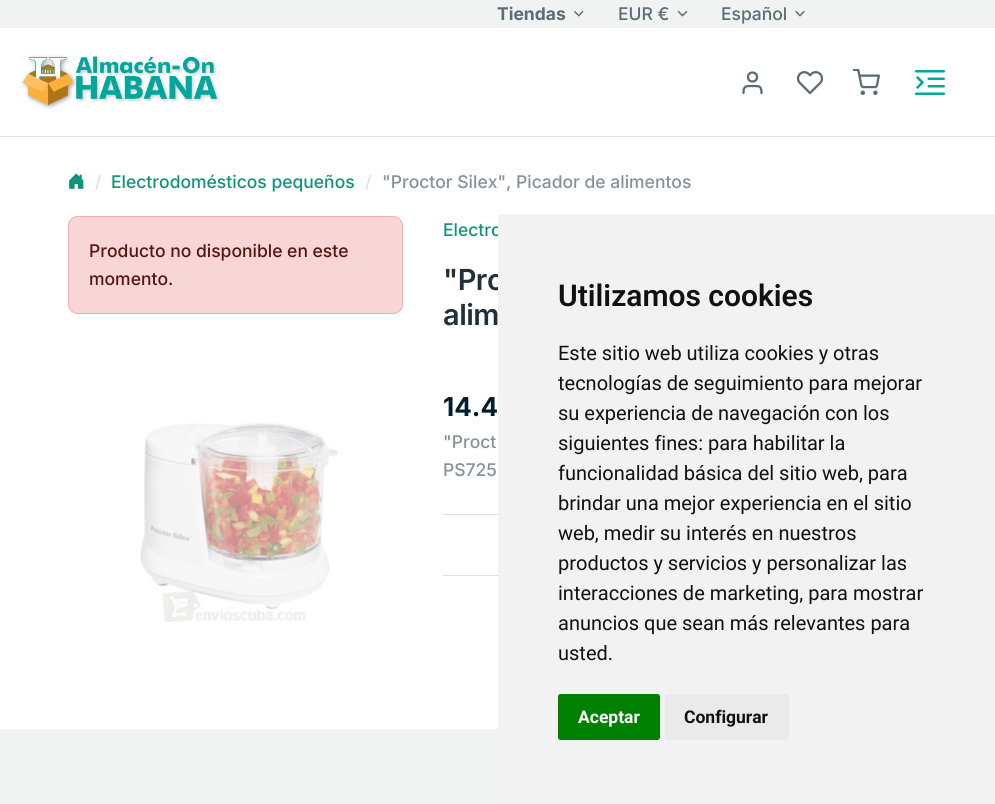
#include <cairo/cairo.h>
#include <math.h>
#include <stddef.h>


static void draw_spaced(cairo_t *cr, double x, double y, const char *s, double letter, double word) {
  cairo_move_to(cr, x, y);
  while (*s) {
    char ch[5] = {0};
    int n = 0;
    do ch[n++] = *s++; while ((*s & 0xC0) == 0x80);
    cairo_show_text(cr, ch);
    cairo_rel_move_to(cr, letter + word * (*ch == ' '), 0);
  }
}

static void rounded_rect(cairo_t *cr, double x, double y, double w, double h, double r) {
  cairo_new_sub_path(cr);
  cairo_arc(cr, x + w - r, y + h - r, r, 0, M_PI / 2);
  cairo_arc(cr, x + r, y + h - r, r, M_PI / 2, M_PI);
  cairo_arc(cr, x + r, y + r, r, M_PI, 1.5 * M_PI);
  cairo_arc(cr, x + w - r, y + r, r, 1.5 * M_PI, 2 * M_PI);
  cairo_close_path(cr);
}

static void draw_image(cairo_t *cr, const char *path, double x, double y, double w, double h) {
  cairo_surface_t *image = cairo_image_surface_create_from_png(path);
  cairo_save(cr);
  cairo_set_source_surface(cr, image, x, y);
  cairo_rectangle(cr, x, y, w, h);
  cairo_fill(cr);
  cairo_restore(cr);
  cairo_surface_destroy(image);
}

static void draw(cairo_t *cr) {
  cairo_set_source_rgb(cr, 1, 1, 1);
  cairo_paint(cr);
  cairo_set_source_rgb(cr, 223 / 255.0, 226 / 255.0, 225 / 255.0);
  cairo_rectangle(cr, 0, 136, 995, 1);
  cairo_fill(cr);
  cairo_set_source_rgb(cr, 240 / 255.0, 243 / 255.0, 242 / 255.0);
  cairo_rectangle(cr, 0, 0, 995, 28);
  cairo_fill(cr);
  draw_image(cr, "images/1.png", 574, 10, 10, 7);
  draw_image(cr, "images/2.png", 677, 10, 11, 7);
  draw_image(cr, "images/3.png", 795, 10, 10, 7);
  draw_image(cr, "images/4.png", 21, 55, 199, 55);
  cairo_arc(cr, 752.5, 77, 4.5, 0, 2 * M_PI);
  cairo_set_source_rgb(cr, 92 / 255.0, 108 / 255.0, 117 / 255.0);
  cairo_set_line_width(cr, 2.3);
  cairo_stroke(cr);
  cairo_new_path(cr);
  cairo_move_to(cr, 761.5, 93);
  cairo_curve_to(cr, 761.5, 85.5, 759, 86, 752.5, 86);
  cairo_curve_to(cr, 746, 86, 743.5, 85.5, 743.5, 93);
  cairo_set_line_cap(cr, CAIRO_LINE_CAP_ROUND);
  cairo_set_line_join(cr, CAIRO_LINE_JOIN_ROUND);
  cairo_stroke(cr);
  draw_image(cr, "images/5.png", 796, 71, 28, 24);
  draw_image(cr, "images/6.png", 853, 69, 27, 26);
  draw_image(cr, "images/7.png", 915, 70, 30, 25);
  draw_image(cr, "images/8.png", 69, 173, 15, 16);
  cairo_set_source_rgb(cr, 248 / 255.0, 214 / 255.0, 214 / 255.0);
  rounded_rect(cr, 68.5, 216.5, 334, 97, 9.5);
  cairo_fill_preserve(cr);
  cairo_set_source_rgb(cr, 241 / 255.0, 172 / 255.0, 172 / 255.0);
  cairo_set_line_width(cr, 1);
  cairo_set_line_cap(cr, CAIRO_LINE_CAP_BUTT);
  cairo_set_line_join(cr, CAIRO_LINE_JOIN_MITER);
  cairo_stroke(cr);
  draw_image(cr, "images/9.png", 140, 422, 198, 200);
  cairo_set_source_rgb(cr, 223 / 255.0, 226 / 255.0, 225 / 255.0);
  cairo_rectangle(cr, 443, 514, 55, 1);
  cairo_fill(cr);
  cairo_rectangle(cr, 443, 575, 55, 1);
  cairo_fill(cr);
  cairo_set_source_rgb(cr, 240 / 255.0, 243 / 255.0, 242 / 255.0);
  cairo_rectangle(cr, 0, 729, 498, 75);
  cairo_fill(cr);
  cairo_select_font_face(cr, "Inter", CAIRO_FONT_SLANT_NORMAL, CAIRO_FONT_WEIGHT_BOLD);
  cairo_set_font_size(cr, 17.5);
  cairo_set_source_rgb(cr, 92 / 255.0, 108 / 255.0, 117 / 255.0);
  cairo_move_to(cr, 497, 20);
  cairo_show_text(cr, "Tiendas");
  cairo_select_font_face(cr, "Inter Medium", CAIRO_FONT_SLANT_NORMAL, CAIRO_FONT_WEIGHT_NORMAL);
  cairo_move_to(cr, 618, 20);
  cairo_show_text(cr, "EUR €");
  cairo_move_to(cr, 721, 20);
  cairo_show_text(cr, "Español");
  cairo_set_source_rgb(cr, 223 / 255.0, 226 / 255.0, 225 / 255.0);
  cairo_move_to(cr, 95, 188);
  cairo_show_text(cr, "/");
  cairo_set_source_rgb(cr, 14 / 255.0, 148 / 255.0, 122 / 255.0);
  cairo_move_to(cr, 111, 188);
  cairo_show_text(cr, "Electrodomésticos pequeños");
  cairo_set_source_rgb(cr, 223 / 255.0, 226 / 255.0, 225 / 255.0);
  cairo_move_to(cr, 365, 188);
  cairo_show_text(cr, "/");
  cairo_set_source_rgb(cr, 133 / 255.0, 145 / 255.0, 152 / 255.0);
  cairo_move_to(cr, 382, 188);
  cairo_show_text(cr, "\"Proctor Silex\", Picador de alimentos");
  cairo_set_source_rgb(cr, 88 / 255.0, 19 / 255.0, 19 / 255.0);
  cairo_move_to(cr, 89, 257);
  cairo_show_text(cr, "Producto no disponible en este");
  cairo_move_to(cr, 89, 285);
  cairo_show_text(cr, "momento.");
  cairo_set_source_rgb(cr, 14 / 255.0, 148 / 255.0, 122 / 255.0);
  cairo_move_to(cr, 443, 236);
  cairo_show_text(cr, "Electro");
  cairo_select_font_face(cr, "Inter SemiBold", CAIRO_FONT_SLANT_NORMAL, CAIRO_FONT_WEIGHT_NORMAL);
  cairo_set_font_size(cr, 29);
  cairo_set_source_rgb(cr, 33 / 255.0, 49 / 255.0, 60 / 255.0);
  draw_spaced(cr, 443, 290, "\"Pro", -0.5, 0);
  draw_spaced(cr, 443, 325, "alim", -0.5, 0);
  cairo_select_font_face(cr, "Inter", CAIRO_FONT_SLANT_NORMAL, CAIRO_FONT_WEIGHT_BOLD);
  cairo_set_font_size(cr, 26);
  cairo_set_source_rgb(cr, 0, 30 / 255.0, 43 / 255.0);
  cairo_move_to(cr, 443, 416);
  cairo_show_text(cr, "14.4");
  cairo_select_font_face(cr, "Inter Medium", CAIRO_FONT_SLANT_NORMAL, CAIRO_FONT_WEIGHT_NORMAL);
  cairo_set_font_size(cr, 17.5);
  cairo_set_source_rgb(cr, 133 / 255.0, 145 / 255.0, 152 / 255.0);
  cairo_move_to(cr, 443, 448);
  cairo_show_text(cr, "\"Proct");
  cairo_move_to(cr, 443, 476);
  cairo_show_text(cr, "PS725");
  cairo_set_source_rgb(cr, 242 / 255.0, 242 / 255.0, 242 / 255.0);
  cairo_rectangle(cr, 498, 214, 497, 590);
  cairo_fill(cr);
  cairo_select_font_face(cr, "Roboto SemiBold", CAIRO_FONT_SLANT_NORMAL, CAIRO_FONT_WEIGHT_NORMAL);
  cairo_set_font_size(cr, 30);
  cairo_set_source_rgb(cr, 17 / 255.0, 17 / 255.0, 17 / 255.0);
  cairo_move_to(cr, 558, 306);
  cairo_show_text(cr, "Utilizamos cookies");
  cairo_select_font_face(cr, "Roboto", CAIRO_FONT_SLANT_NORMAL, CAIRO_FONT_WEIGHT_NORMAL);
  cairo_set_font_size(cr, 20);
  cairo_move_to(cr, 558, 360);
  cairo_show_text(cr, "Este sitio web utiliza cookies y otras");
  cairo_move_to(cr, 558, 390);
  cairo_show_text(cr, "tecnologías de seguimiento para mejorar");
  cairo_move_to(cr, 558, 420);
  cairo_show_text(cr, "su experiencia de navegación con los");
  cairo_move_to(cr, 558, 450);
  cairo_show_text(cr, "siguientes fines: para habilitar la");
  cairo_move_to(cr, 558, 480);
  cairo_show_text(cr, "funcionalidad básica del sitio web, para");
  cairo_move_to(cr, 558, 510);
  cairo_show_text(cr, "brindar una mejor experiencia en el sitio");
  cairo_move_to(cr, 558, 540);
  cairo_show_text(cr, "web, medir su interés en nuestros");
  cairo_move_to(cr, 558, 570);
  cairo_show_text(cr, "productos y servicios y personalizar las");
  cairo_move_to(cr, 558, 600);
  cairo_show_text(cr, "interacciones de marketing, para mostrar");
  cairo_move_to(cr, 558, 630);
  cairo_show_text(cr, "anuncios que sean más relevantes para");
  cairo_move_to(cr, 558, 660);
  cairo_show_text(cr, "usted.");
  cairo_set_source_rgb(cr, 0, 128 / 255.0, 0);
  rounded_rect(cr, 558, 694, 102, 46, 2.5);
  cairo_fill(cr);
  cairo_select_font_face(cr, "Roboto", CAIRO_FONT_SLANT_NORMAL, CAIRO_FONT_WEIGHT_BOLD);
  cairo_set_font_size(cr, 17.5);
  cairo_set_source_rgb(cr, 1, 1, 1);
  cairo_move_to(cr, 578, 723);
  cairo_show_text(cr, "Aceptar");
  cairo_set_source_rgb(cr, 234 / 255.0, 234 / 255.0, 234 / 255.0);
  rounded_rect(cr, 665, 694, 124, 46, 2.5);
  cairo_fill(cr);
  cairo_set_source_rgb(cr, 17 / 255.0, 17 / 255.0, 17 / 255.0);
  cairo_move_to(cr, 684, 723);
  cairo_show_text(cr, "Configurar");
}

int main(void) {
  cairo_surface_t *surface = cairo_image_surface_create(CAIRO_FORMAT_RGB24, 995, 804);
  cairo_t *cr = cairo_create(surface);
  cairo_font_options_t *options = cairo_font_options_create();
  cairo_font_options_set_hint_metrics(options, CAIRO_HINT_METRICS_OFF);
  cairo_font_options_set_hint_style(options, CAIRO_HINT_STYLE_NONE);
  cairo_set_font_options(cr, options);
  cairo_set_miter_limit(cr, 4);
  draw(cr);
  cairo_surface_write_to_png(surface, "out.png");
  cairo_font_options_destroy(options);
  cairo_destroy(cr);
  cairo_surface_destroy(surface);
  return 0;
}
